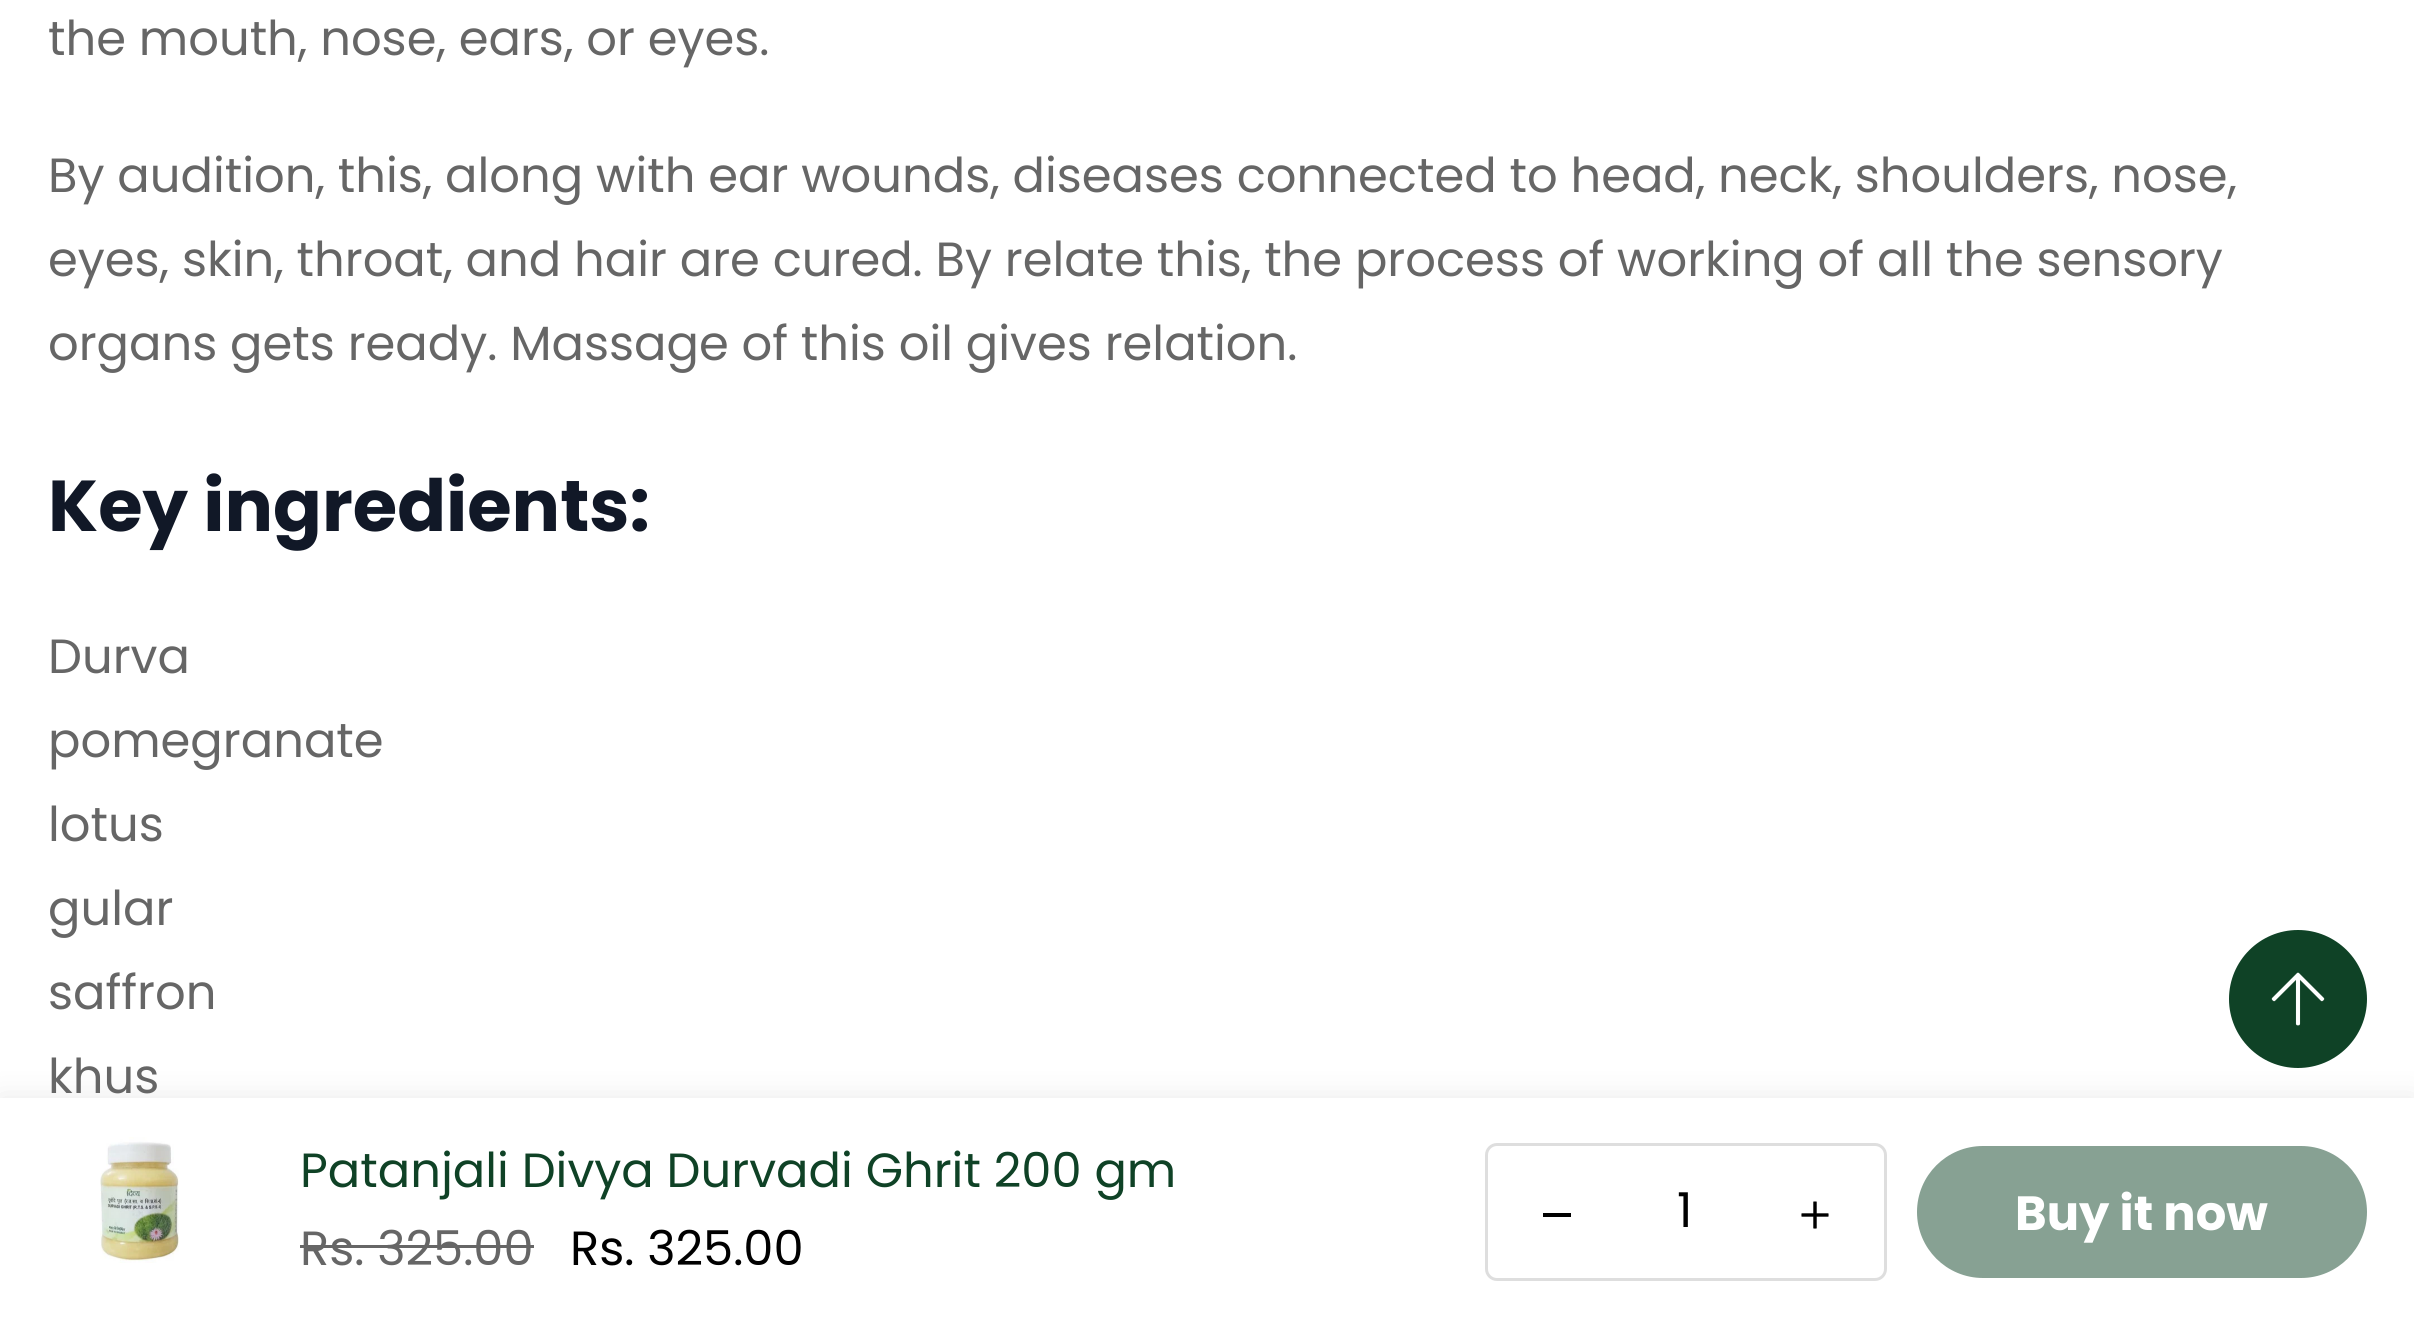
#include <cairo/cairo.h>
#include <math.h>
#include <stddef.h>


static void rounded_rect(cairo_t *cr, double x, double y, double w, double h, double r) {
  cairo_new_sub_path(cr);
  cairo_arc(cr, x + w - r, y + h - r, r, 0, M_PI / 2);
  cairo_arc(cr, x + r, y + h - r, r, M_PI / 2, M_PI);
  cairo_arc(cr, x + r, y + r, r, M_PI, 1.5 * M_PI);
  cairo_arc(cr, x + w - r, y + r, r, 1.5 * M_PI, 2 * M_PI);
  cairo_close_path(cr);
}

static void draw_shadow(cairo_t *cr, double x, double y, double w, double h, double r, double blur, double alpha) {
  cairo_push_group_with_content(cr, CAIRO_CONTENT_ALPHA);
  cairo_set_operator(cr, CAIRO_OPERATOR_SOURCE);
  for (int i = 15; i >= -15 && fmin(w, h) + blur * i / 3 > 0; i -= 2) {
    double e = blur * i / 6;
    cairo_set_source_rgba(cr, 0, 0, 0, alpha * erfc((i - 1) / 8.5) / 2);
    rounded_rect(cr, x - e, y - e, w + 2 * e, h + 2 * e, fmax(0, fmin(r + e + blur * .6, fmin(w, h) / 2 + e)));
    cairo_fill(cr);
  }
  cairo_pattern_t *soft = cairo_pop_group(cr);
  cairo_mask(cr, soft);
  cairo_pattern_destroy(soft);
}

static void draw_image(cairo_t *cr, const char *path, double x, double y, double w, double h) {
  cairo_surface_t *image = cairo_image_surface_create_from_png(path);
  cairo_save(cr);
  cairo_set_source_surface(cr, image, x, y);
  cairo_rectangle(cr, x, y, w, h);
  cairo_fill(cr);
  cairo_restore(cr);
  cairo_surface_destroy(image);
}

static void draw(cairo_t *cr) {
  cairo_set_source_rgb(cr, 1, 1, 1);
  cairo_paint(cr);
  cairo_set_source_rgb(cr, 0, 0, 0);
  draw_shadow(cr, 0, 1098, 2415, 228, 0, 15, 0.09);
  cairo_set_source_rgb(cr, 15 / 255.0, 66 / 255.0, 38 / 255.0);
  cairo_arc(cr, 2298, 999, 67.5, 0, 2 * M_PI);
  cairo_fill_preserve(cr);
  cairo_set_line_width(cr, 3);
  cairo_stroke(cr);
  draw_image(cr, "images/1.png", 2271, 972, 54, 54);
  cairo_set_source_rgb(cr, 1, 1, 1);
  cairo_rectangle(cr, 0, 1098, 2414, 227);
  cairo_fill(cr);
  draw_image(cr, "images/2.png", 100, 1137, 79, 126);
  cairo_set_source_rgb(cr, 102 / 255.0, 102 / 255.0, 102 / 255.0);
  cairo_rectangle(cr, 300, 1245, 234, 3);
  cairo_fill(cr);
  rounded_rect(cr, 1486.5, 1144.5, 399, 135, 10.5);
  cairo_set_source_rgb(cr, 222 / 255.0, 222 / 255.0, 222 / 255.0);
  cairo_stroke(cr);
  cairo_set_source_rgb(cr, 0, 0, 0);
  cairo_rectangle(cr, 1543, 1213, 28, 4);
  cairo_fill(cr);
  draw_image(cr, "images/3.png", 1801, 1201, 28, 28);
  cairo_set_source_rgb(cr, 135 / 255.0, 161 / 255.0, 147 / 255.0);
  rounded_rect(cr, 1918.5, 1147.5, 447, 129, 64.5);
  cairo_fill_preserve(cr);
  cairo_stroke(cr);
  cairo_select_font_face(cr, "Poppins", CAIRO_FONT_SLANT_NORMAL, CAIRO_FONT_WEIGHT_NORMAL);
  cairo_set_font_size(cr, 48);
  cairo_set_source_rgb(cr, 102 / 255.0, 102 / 255.0, 102 / 255.0);
  cairo_move_to(cr, 48, 55);
  cairo_show_text(cr, "the mouth, nose, ears, or eyes.");
  cairo_move_to(cr, 48, 192);
  cairo_show_text(cr, "By audition, this, along with ear wounds, diseases connected to head, neck, shoulders, nose,");
  cairo_move_to(cr, 48, 276);
  cairo_show_text(cr, "eyes, skin, throat, and hair are cured. By relate this, the process of working of all the sensory");
  cairo_move_to(cr, 48, 360);
  cairo_show_text(cr, "organs gets ready. Massage of this oil gives relation.");
  cairo_select_font_face(cr, "Poppins", CAIRO_FONT_SLANT_NORMAL, CAIRO_FONT_WEIGHT_BOLD);
  cairo_set_font_size(cr, 72);
  cairo_set_source_rgb(cr, 17 / 255.0, 24 / 255.0, 39 / 255.0);
  cairo_move_to(cr, 48, 531);
  cairo_show_text(cr, "Key ingredients:");
  cairo_select_font_face(cr, "Poppins", CAIRO_FONT_SLANT_NORMAL, CAIRO_FONT_WEIGHT_NORMAL);
  cairo_set_font_size(cr, 48);
  cairo_set_source_rgb(cr, 102 / 255.0, 102 / 255.0, 102 / 255.0);
  cairo_move_to(cr, 48, 673);
  cairo_show_text(cr, "Durva");
  cairo_move_to(cr, 48, 757);
  cairo_show_text(cr, "pomegranate");
  cairo_move_to(cr, 48, 841);
  cairo_show_text(cr, "lotus");
  cairo_move_to(cr, 48, 925);
  cairo_show_text(cr, "gular");
  cairo_move_to(cr, 48, 1009);
  cairo_show_text(cr, "saffron");
  cairo_move_to(cr, 48, 1093);
  cairo_show_text(cr, "khus");
  cairo_set_source_rgb(cr, 15 / 255.0, 66 / 255.0, 38 / 255.0);
  cairo_move_to(cr, 300, 1187);
  cairo_show_text(cr, "Patanjali Divya Durvadi Ghrit 200 gm");
  cairo_set_source_rgb(cr, 102 / 255.0, 102 / 255.0, 102 / 255.0);
  cairo_move_to(cr, 300, 1265);
  cairo_show_text(cr, "Rs. 325.00");
  cairo_set_source_rgb(cr, 0, 0, 0);
  cairo_move_to(cr, 570, 1265);
  cairo_show_text(cr, "Rs. 325.00");
  cairo_move_to(cr, 1677, 1227);
  cairo_show_text(cr, "1");
  cairo_select_font_face(cr, "Poppins", CAIRO_FONT_SLANT_NORMAL, CAIRO_FONT_WEIGHT_BOLD);
  cairo_set_source_rgb(cr, 1, 1, 1);
  cairo_move_to(cr, 2015, 1230);
  cairo_show_text(cr, "Buy it now");
}

int main(void) {
  cairo_surface_t *surface = cairo_image_surface_create(CAIRO_FORMAT_RGB24, 2414, 1325);
  cairo_t *cr = cairo_create(surface);
  cairo_font_options_t *options = cairo_font_options_create();
  cairo_font_options_set_hint_metrics(options, CAIRO_HINT_METRICS_OFF);
  cairo_font_options_set_hint_style(options, CAIRO_HINT_STYLE_NONE);
  cairo_set_font_options(cr, options);
  cairo_set_miter_limit(cr, 4);
  draw(cr);
  cairo_surface_write_to_png(surface, "out.png");
  cairo_font_options_destroy(options);
  cairo_destroy(cr);
  cairo_surface_destroy(surface);
  return 0;
}
